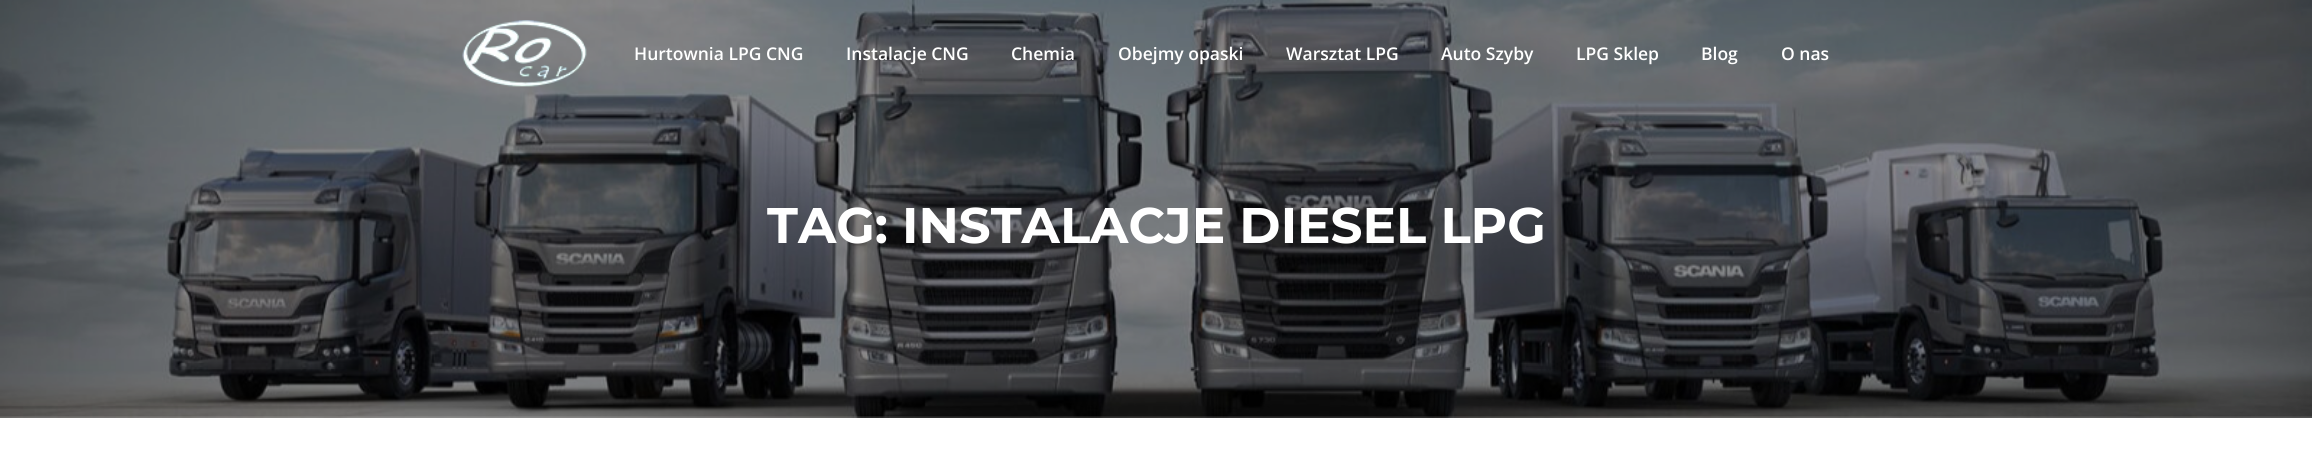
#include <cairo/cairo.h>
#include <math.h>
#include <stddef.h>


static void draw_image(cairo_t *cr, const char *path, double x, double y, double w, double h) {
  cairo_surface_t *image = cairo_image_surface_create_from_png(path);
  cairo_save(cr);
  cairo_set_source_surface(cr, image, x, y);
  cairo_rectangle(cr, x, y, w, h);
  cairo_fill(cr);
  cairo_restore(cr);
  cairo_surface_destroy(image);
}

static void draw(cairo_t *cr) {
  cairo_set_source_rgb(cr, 1, 1, 1);
  cairo_paint(cr);
  draw_image(cr, "images/2.png", 0, 0, 2312, 418);
  draw_image(cr, "images/1.png", 462, 20, 125, 67);
  cairo_select_font_face(cr, "Open Sans SemiBold", CAIRO_FONT_SLANT_NORMAL, CAIRO_FONT_WEIGHT_NORMAL);
  cairo_set_font_size(cr, 17.5);
  cairo_set_source_rgb(cr, 1, 1, 1);
  cairo_move_to(cr, 634, 60);
  cairo_show_text(cr, "Hurtownia LPG CNG");
  cairo_move_to(cr, 846, 60);
  cairo_show_text(cr, "Instalacje CNG");
  cairo_move_to(cr, 1011, 60);
  cairo_show_text(cr, "Chemia");
  cairo_move_to(cr, 1118, 60);
  cairo_show_text(cr, "Obejmy opaski");
  cairo_move_to(cr, 1286, 60);
  cairo_show_text(cr, "Warsztat LPG");
  cairo_move_to(cr, 1441, 60);
  cairo_show_text(cr, "Auto Szyby");
  cairo_move_to(cr, 1576, 60);
  cairo_show_text(cr, "LPG Sklep");
  cairo_move_to(cr, 1701, 60);
  cairo_show_text(cr, "Blog");
  cairo_move_to(cr, 1781, 60);
  cairo_show_text(cr, "O nas");
  cairo_select_font_face(cr, "Montserrat", CAIRO_FONT_SLANT_NORMAL, CAIRO_FONT_WEIGHT_BOLD);
  cairo_set_font_size(cr, 50);
  cairo_move_to(cr, 767, 243);
  cairo_show_text(cr, "TAG: INSTALACJE DIESEL LPG");
}

int main(void) {
  cairo_surface_t *surface = cairo_image_surface_create(CAIRO_FORMAT_RGB24, 2312, 473);
  cairo_t *cr = cairo_create(surface);
  cairo_font_options_t *options = cairo_font_options_create();
  cairo_font_options_set_hint_metrics(options, CAIRO_HINT_METRICS_OFF);
  cairo_font_options_set_hint_style(options, CAIRO_HINT_STYLE_NONE);
  cairo_set_font_options(cr, options);
  cairo_set_miter_limit(cr, 4);
  draw(cr);
  cairo_surface_write_to_png(surface, "out.png");
  cairo_font_options_destroy(options);
  cairo_destroy(cr);
  cairo_surface_destroy(surface);
  return 0;
}
